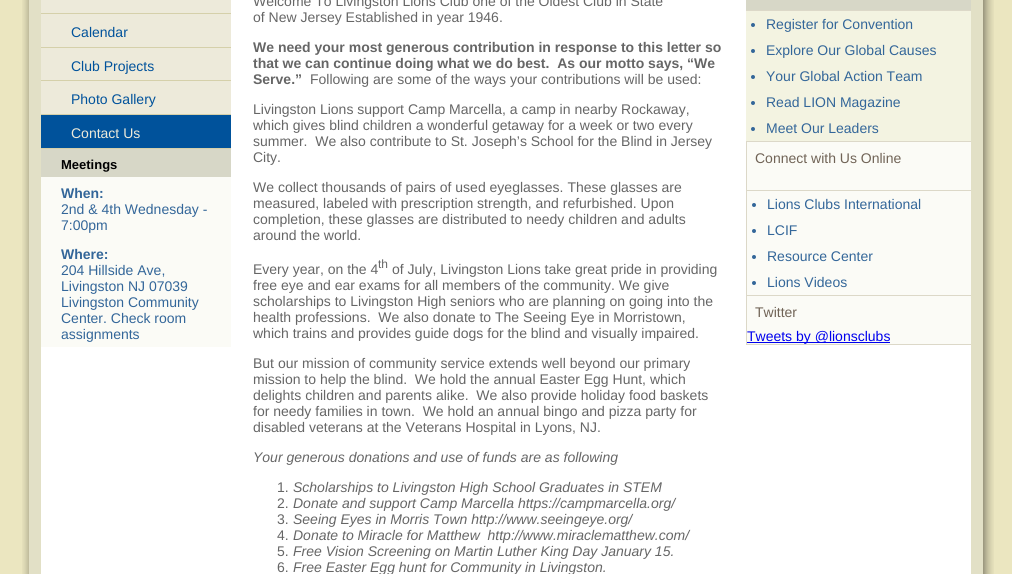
#include <cairo/cairo.h>
#include <math.h>
#include <stddef.h>


static void draw_image(cairo_t *cr, const char *path, double x, double y, double w, double h) {
  cairo_surface_t *image = cairo_image_surface_create_from_png(path);
  cairo_save(cr);
  cairo_set_source_surface(cr, image, x, y);
  cairo_rectangle(cr, x, y, w, h);
  cairo_fill(cr);
  cairo_restore(cr);
  cairo_surface_destroy(image);
}

static void draw(cairo_t *cr) {
  cairo_set_source_rgb(cr, 235 / 255.0, 230 / 255.0, 192 / 255.0);
  cairo_paint(cr);
  draw_image(cr, "images/1.png", 22, 0, 7, 574);
  cairo_set_source_rgb(cr, 226 / 255.0, 224 / 255.0, 198 / 255.0);
  cairo_rectangle(cr, 29, 0, 954, 574);
  cairo_fill(cr);
  cairo_set_source_rgb(cr, 1, 1, 1);
  cairo_rectangle(cr, 41, 0, 930, 574);
  cairo_fill(cr);
  cairo_set_source_rgb(cr, 213 / 255.0, 208 / 255.0, 170 / 255.0);
  cairo_rectangle(cr, 41, 13, 190, 1);
  cairo_fill(cr);
  cairo_set_source_rgb(cr, 237 / 255.0, 234 / 255.0, 218 / 255.0);
  cairo_rectangle(cr, 41, 0, 190, 13);
  cairo_fill(cr);
  cairo_set_source_rgb(cr, 213 / 255.0, 208 / 255.0, 170 / 255.0);
  cairo_rectangle(cr, 41, 47, 190, 1);
  cairo_fill(cr);
  cairo_set_source_rgb(cr, 237 / 255.0, 234 / 255.0, 218 / 255.0);
  cairo_rectangle(cr, 41, 14, 190, 33);
  cairo_fill(cr);
  cairo_set_source_rgb(cr, 213 / 255.0, 208 / 255.0, 170 / 255.0);
  cairo_rectangle(cr, 41, 80, 190, 1);
  cairo_fill(cr);
  cairo_set_source_rgb(cr, 237 / 255.0, 234 / 255.0, 218 / 255.0);
  cairo_rectangle(cr, 41, 48, 190, 32);
  cairo_fill(cr);
  cairo_set_source_rgb(cr, 213 / 255.0, 208 / 255.0, 170 / 255.0);
  cairo_rectangle(cr, 41, 114, 190, 1);
  cairo_fill(cr);
  cairo_set_source_rgb(cr, 237 / 255.0, 234 / 255.0, 218 / 255.0);
  cairo_rectangle(cr, 41, 81, 190, 33);
  cairo_fill(cr);
  cairo_set_source_rgb(cr, 213 / 255.0, 208 / 255.0, 170 / 255.0);
  cairo_rectangle(cr, 41, 148, 190, 1);
  cairo_fill(cr);
  cairo_set_source_rgb(cr, 0, 82 / 255.0, 155 / 255.0);
  cairo_rectangle(cr, 41, 115, 190, 33);
  cairo_fill(cr);
  cairo_set_source_rgb(cr, 251 / 255.0, 251 / 255.0, 246 / 255.0);
  cairo_rectangle(cr, 41, 177, 190, 170);
  cairo_fill(cr);
  cairo_set_source_rgb(cr, 215 / 255.0, 215 / 255.0, 199 / 255.0);
  cairo_rectangle(cr, 41, 149, 190, 28);
  cairo_fill(cr);
  cairo_set_source_rgb(cr, 243 / 255.0, 243 / 255.0, 225 / 255.0);
  cairo_rectangle(cr, 746, 11, 225, 130);
  cairo_fill(cr);
  cairo_set_source_rgb(cr, 215 / 255.0, 215 / 255.0, 199 / 255.0);
  cairo_rectangle(cr, 746, 0, 225, 10);
  cairo_fill(cr);
  cairo_set_source_rgb(cr, 220 / 255.0, 216 / 255.0, 200 / 255.0);
  cairo_rectangle(cr, 746, 10, 225, 1);
  cairo_fill(cr);
  cairo_set_source_rgb(cr, 51 / 255.0, 102 / 255.0, 153 / 255.0);
  cairo_arc(cr, 753, 25, 2, 0, 2 * M_PI);
  cairo_fill(cr);
  cairo_arc(cr, 753, 51, 2, 0, 2 * M_PI);
  cairo_fill(cr);
  cairo_arc(cr, 753, 77, 2, 0, 2 * M_PI);
  cairo_fill(cr);
  cairo_arc(cr, 753, 103, 2, 0, 2 * M_PI);
  cairo_fill(cr);
  cairo_arc(cr, 753, 129, 2, 0, 2 * M_PI);
  cairo_fill(cr);
  cairo_set_source_rgb(cr, 220 / 255.0, 216 / 255.0, 200 / 255.0);
  cairo_rectangle(cr, 746, 141, 225, 1);
  cairo_fill(cr);
  cairo_set_source_rgb(cr, 251 / 255.0, 251 / 255.0, 246 / 255.0);
  cairo_rectangle(cr, 747, 142, 224, 48);
  cairo_fill(cr);
  cairo_set_source_rgb(cr, 220 / 255.0, 216 / 255.0, 200 / 255.0);
  cairo_rectangle(cr, 746, 142, 1, 48);
  cairo_fill(cr);
  cairo_rectangle(cr, 746, 190, 225, 1);
  cairo_fill(cr);
  cairo_set_source_rgb(cr, 251 / 255.0, 251 / 255.0, 246 / 255.0);
  cairo_rectangle(cr, 747, 191, 224, 104);
  cairo_fill(cr);
  cairo_set_source_rgb(cr, 220 / 255.0, 216 / 255.0, 200 / 255.0);
  cairo_rectangle(cr, 746, 191, 1, 104);
  cairo_fill(cr);
  cairo_set_source_rgb(cr, 51 / 255.0, 102 / 255.0, 153 / 255.0);
  cairo_arc(cr, 754, 205, 2, 0, 2 * M_PI);
  cairo_fill(cr);
  cairo_arc(cr, 754, 231, 2, 0, 2 * M_PI);
  cairo_fill(cr);
  cairo_arc(cr, 754, 257, 2, 0, 2 * M_PI);
  cairo_fill(cr);
  cairo_arc(cr, 754, 283, 2, 0, 2 * M_PI);
  cairo_fill(cr);
  cairo_set_source_rgb(cr, 220 / 255.0, 216 / 255.0, 200 / 255.0);
  cairo_rectangle(cr, 746, 295, 225, 1);
  cairo_fill(cr);
  cairo_set_source_rgb(cr, 251 / 255.0, 251 / 255.0, 246 / 255.0);
  cairo_rectangle(cr, 747, 296, 224, 48);
  cairo_fill(cr);
  cairo_set_source_rgb(cr, 220 / 255.0, 216 / 255.0, 200 / 255.0);
  cairo_rectangle(cr, 746, 296, 1, 48);
  cairo_fill(cr);
  cairo_set_source_rgb(cr, 0, 0, 238 / 255.0);
  cairo_rectangle(cr, 747, 342, 143, 1);
  cairo_fill(cr);
  cairo_set_source_rgb(cr, 220 / 255.0, 216 / 255.0, 200 / 255.0);
  cairo_rectangle(cr, 746, 344, 225, 1);
  cairo_fill(cr);
  draw_image(cr, "images/2.png", 983, 0, 11, 574);
  cairo_select_font_face(cr, "Liberation Sans", CAIRO_FONT_SLANT_NORMAL, CAIRO_FONT_WEIGHT_NORMAL);
  cairo_set_font_size(cr, 14);
  cairo_set_source_rgb(cr, 0, 82 / 255.0, 155 / 255.0);
  cairo_move_to(cr, 71, 37);
  cairo_show_text(cr, "Calendar");
  cairo_move_to(cr, 71, 71);
  cairo_show_text(cr, "Club Projects");
  cairo_move_to(cr, 71, 104);
  cairo_show_text(cr, "Photo Gallery");
  cairo_set_source_rgb(cr, 237 / 255.0, 234 / 255.0, 218 / 255.0);
  cairo_move_to(cr, 71, 138);
  cairo_show_text(cr, "Contact Us");
  cairo_select_font_face(cr, "Liberation Sans", CAIRO_FONT_SLANT_NORMAL, CAIRO_FONT_WEIGHT_BOLD);
  cairo_set_font_size(cr, 13);
  cairo_set_source_rgb(cr, 0, 0, 0);
  cairo_move_to(cr, 61, 169);
  cairo_show_text(cr, "Meetings");
  cairo_set_font_size(cr, 14);
  cairo_set_source_rgb(cr, 51 / 255.0, 102 / 255.0, 153 / 255.0);
  cairo_move_to(cr, 61, 198);
  cairo_show_text(cr, "When:");
  cairo_select_font_face(cr, "Liberation Sans", CAIRO_FONT_SLANT_NORMAL, CAIRO_FONT_WEIGHT_NORMAL);
  cairo_move_to(cr, 61, 214);
  cairo_show_text(cr, "2nd & 4th Wednesday -");
  cairo_move_to(cr, 61, 230);
  cairo_show_text(cr, "7:00pm");
  cairo_select_font_face(cr, "Liberation Sans", CAIRO_FONT_SLANT_NORMAL, CAIRO_FONT_WEIGHT_BOLD);
  cairo_move_to(cr, 61, 259);
  cairo_show_text(cr, "Where:");
  cairo_select_font_face(cr, "Liberation Sans", CAIRO_FONT_SLANT_NORMAL, CAIRO_FONT_WEIGHT_NORMAL);
  cairo_move_to(cr, 61, 275);
  cairo_show_text(cr, "204 Hillside Ave,");
  cairo_move_to(cr, 61, 291);
  cairo_show_text(cr, "Livingston NJ 07039");
  cairo_move_to(cr, 61, 307);
  cairo_show_text(cr, "Livingston Community");
  cairo_move_to(cr, 61, 323);
  cairo_show_text(cr, "Center. Check room");
  cairo_move_to(cr, 61, 339);
  cairo_show_text(cr, "assignments");
  cairo_set_source_rgb(cr, 102 / 255.0, 102 / 255.0, 102 / 255.0);
  cairo_move_to(cr, 253, 6);
  cairo_show_text(cr, "Welcome To Livingston Lions Club one of the Oldest Club in State");
  cairo_move_to(cr, 253, 22);
  cairo_show_text(cr, "of New Jersey Established in year 1946.");
  cairo_select_font_face(cr, "Liberation Sans", CAIRO_FONT_SLANT_NORMAL, CAIRO_FONT_WEIGHT_BOLD);
  cairo_move_to(cr, 253, 52);
  cairo_show_text(cr, "We need your most generous contribution in response to this letter so");
  cairo_move_to(cr, 253, 68);
  cairo_show_text(cr, "that we can continue doing what we do best.  As our motto says, “We");
  cairo_move_to(cr, 253, 84);
  cairo_show_text(cr, "Serve.”");
  cairo_select_font_face(cr, "Liberation Sans", CAIRO_FONT_SLANT_NORMAL, CAIRO_FONT_WEIGHT_NORMAL);
  cairo_move_to(cr, 310, 84);
  cairo_show_text(cr, "Following are some of the ways your contributions will be used:");
  cairo_move_to(cr, 253, 114);
  cairo_show_text(cr, "Livingston Lions support Camp Marcella, a camp in nearby Rockaway,");
  cairo_move_to(cr, 253, 130);
  cairo_show_text(cr, "which gives blind children a wonderful getaway for a week or two every");
  cairo_move_to(cr, 253, 146);
  cairo_show_text(cr, "summer.  We also contribute to St. Joseph’s School for the Blind in Jersey");
  cairo_move_to(cr, 253, 162);
  cairo_show_text(cr, "City.");
  cairo_move_to(cr, 253, 192);
  cairo_show_text(cr, "We collect thousands of pairs of used eyeglasses. These glasses are");
  cairo_move_to(cr, 253, 208);
  cairo_show_text(cr, "measured, labeled with prescription strength, and refurbished. Upon");
  cairo_move_to(cr, 253, 224);
  cairo_show_text(cr, "completion, these glasses are distributed to needy children and adults");
  cairo_move_to(cr, 253, 240);
  cairo_show_text(cr, "around the world.");
  cairo_move_to(cr, 253, 274);
  cairo_show_text(cr, "Every year, on the 4");
  cairo_set_font_size(cr, 12);
  cairo_move_to(cr, 378, 268);
  cairo_show_text(cr, "th");
  cairo_set_font_size(cr, 14);
  cairo_move_to(cr, 392, 274);
  cairo_show_text(cr, "of July, Livingston Lions take great pride in providing");
  cairo_move_to(cr, 253, 290);
  cairo_show_text(cr, "free eye and ear exams for all members of the community. We give");
  cairo_move_to(cr, 253, 306);
  cairo_show_text(cr, "scholarships to Livingston High seniors who are planning on going into the");
  cairo_move_to(cr, 253, 322);
  cairo_show_text(cr, "health professions.  We also donate to The Seeing Eye in Morristown,");
  cairo_move_to(cr, 253, 338);
  cairo_show_text(cr, "which trains and provides guide dogs for the blind and visually impaired.");
  cairo_move_to(cr, 253, 368);
  cairo_show_text(cr, "But our mission of community service extends well beyond our primary");
  cairo_move_to(cr, 253, 384);
  cairo_show_text(cr, "mission to help the blind.  We hold the annual Easter Egg Hunt, which");
  cairo_move_to(cr, 253, 400);
  cairo_show_text(cr, "delights children and parents alike.  We also provide holiday food baskets");
  cairo_move_to(cr, 253, 416);
  cairo_show_text(cr, "for needy families in town.  We hold an annual bingo and pizza party for");
  cairo_move_to(cr, 253, 432);
  cairo_show_text(cr, "disabled veterans at the Veterans Hospital in Lyons, NJ.");
  cairo_select_font_face(cr, "Liberation Sans", CAIRO_FONT_SLANT_ITALIC, CAIRO_FONT_WEIGHT_NORMAL);
  cairo_move_to(cr, 253, 462);
  cairo_show_text(cr, "Your generous donations and use of funds are as following");
  cairo_select_font_face(cr, "Liberation Sans", CAIRO_FONT_SLANT_NORMAL, CAIRO_FONT_WEIGHT_NORMAL);
  cairo_move_to(cr, 277, 492);
  cairo_show_text(cr, "1.");
  cairo_select_font_face(cr, "Liberation Sans", CAIRO_FONT_SLANT_ITALIC, CAIRO_FONT_WEIGHT_NORMAL);
  cairo_move_to(cr, 293, 492);
  cairo_show_text(cr, "Scholarships to Livingston High School Graduates in STEM");
  cairo_select_font_face(cr, "Liberation Sans", CAIRO_FONT_SLANT_NORMAL, CAIRO_FONT_WEIGHT_NORMAL);
  cairo_move_to(cr, 277, 508);
  cairo_show_text(cr, "2.");
  cairo_select_font_face(cr, "Liberation Sans", CAIRO_FONT_SLANT_ITALIC, CAIRO_FONT_WEIGHT_NORMAL);
  cairo_move_to(cr, 293, 508);
  cairo_show_text(cr, "Donate and support Camp Marcella https://campmarcella.org/");
  cairo_select_font_face(cr, "Liberation Sans", CAIRO_FONT_SLANT_NORMAL, CAIRO_FONT_WEIGHT_NORMAL);
  cairo_move_to(cr, 277, 524);
  cairo_show_text(cr, "3.");
  cairo_select_font_face(cr, "Liberation Sans", CAIRO_FONT_SLANT_ITALIC, CAIRO_FONT_WEIGHT_NORMAL);
  cairo_move_to(cr, 293, 524);
  cairo_show_text(cr, "Seeing Eyes in Morris Town http://www.seeingeye.org/");
  cairo_select_font_face(cr, "Liberation Sans", CAIRO_FONT_SLANT_NORMAL, CAIRO_FONT_WEIGHT_NORMAL);
  cairo_move_to(cr, 277, 540);
  cairo_show_text(cr, "4.");
  cairo_select_font_face(cr, "Liberation Sans", CAIRO_FONT_SLANT_ITALIC, CAIRO_FONT_WEIGHT_NORMAL);
  cairo_move_to(cr, 293, 540);
  cairo_show_text(cr, "Donate to Miracle for Matthew  http://www.miraclematthew.com/");
  cairo_select_font_face(cr, "Liberation Sans", CAIRO_FONT_SLANT_NORMAL, CAIRO_FONT_WEIGHT_NORMAL);
  cairo_move_to(cr, 277, 556);
  cairo_show_text(cr, "5.");
  cairo_select_font_face(cr, "Liberation Sans", CAIRO_FONT_SLANT_ITALIC, CAIRO_FONT_WEIGHT_NORMAL);
  cairo_move_to(cr, 293, 556);
  cairo_show_text(cr, "Free Vision Screening on Martin Luther King Day January 15.");
  cairo_select_font_face(cr, "Liberation Sans", CAIRO_FONT_SLANT_NORMAL, CAIRO_FONT_WEIGHT_NORMAL);
  cairo_move_to(cr, 277, 572);
  cairo_show_text(cr, "6.");
  cairo_select_font_face(cr, "Liberation Sans", CAIRO_FONT_SLANT_ITALIC, CAIRO_FONT_WEIGHT_NORMAL);
  cairo_move_to(cr, 293, 572);
  cairo_show_text(cr, "Free Easter Egg hunt for Community in Livingston.");
  cairo_select_font_face(cr, "Liberation Sans", CAIRO_FONT_SLANT_NORMAL, CAIRO_FONT_WEIGHT_NORMAL);
  cairo_set_source_rgb(cr, 51 / 255.0, 102 / 255.0, 153 / 255.0);
  cairo_move_to(cr, 766, 29);
  cairo_show_text(cr, "Register for Convention");
  cairo_move_to(cr, 766, 55);
  cairo_show_text(cr, "Explore Our Global Causes");
  cairo_move_to(cr, 766, 81);
  cairo_show_text(cr, "Your Global Action Team");
  cairo_move_to(cr, 766, 107);
  cairo_show_text(cr, "Read LION Magazine");
  cairo_move_to(cr, 766, 133);
  cairo_show_text(cr, "Meet Our Leaders");
  cairo_set_source_rgb(cr, 112 / 255.0, 99 / 255.0, 86 / 255.0);
  cairo_move_to(cr, 755, 163);
  cairo_show_text(cr, "Connect with Us Online");
  cairo_set_source_rgb(cr, 51 / 255.0, 102 / 255.0, 153 / 255.0);
  cairo_move_to(cr, 767, 209);
  cairo_show_text(cr, "Lions Clubs International");
  cairo_move_to(cr, 767, 235);
  cairo_show_text(cr, "LCIF");
  cairo_move_to(cr, 767, 261);
  cairo_show_text(cr, "Resource Center");
  cairo_move_to(cr, 767, 287);
  cairo_show_text(cr, "Lions Videos");
  cairo_set_source_rgb(cr, 112 / 255.0, 99 / 255.0, 86 / 255.0);
  cairo_move_to(cr, 755, 317);
  cairo_show_text(cr, "Twitter");
  cairo_set_source_rgb(cr, 0, 0, 238 / 255.0);
  cairo_move_to(cr, 747, 341);
  cairo_show_text(cr, "Tweets by @lionsclubs");
}

int main(void) {
  cairo_surface_t *surface = cairo_image_surface_create(CAIRO_FORMAT_RGB24, 1012, 574);
  cairo_t *cr = cairo_create(surface);
  cairo_font_options_t *options = cairo_font_options_create();
  cairo_font_options_set_hint_metrics(options, CAIRO_HINT_METRICS_OFF);
  cairo_font_options_set_hint_style(options, CAIRO_HINT_STYLE_NONE);
  cairo_set_font_options(cr, options);
  cairo_set_miter_limit(cr, 4);
  draw(cr);
  cairo_surface_write_to_png(surface, "out.png");
  cairo_font_options_destroy(options);
  cairo_destroy(cr);
  cairo_surface_destroy(surface);
  return 0;
}
